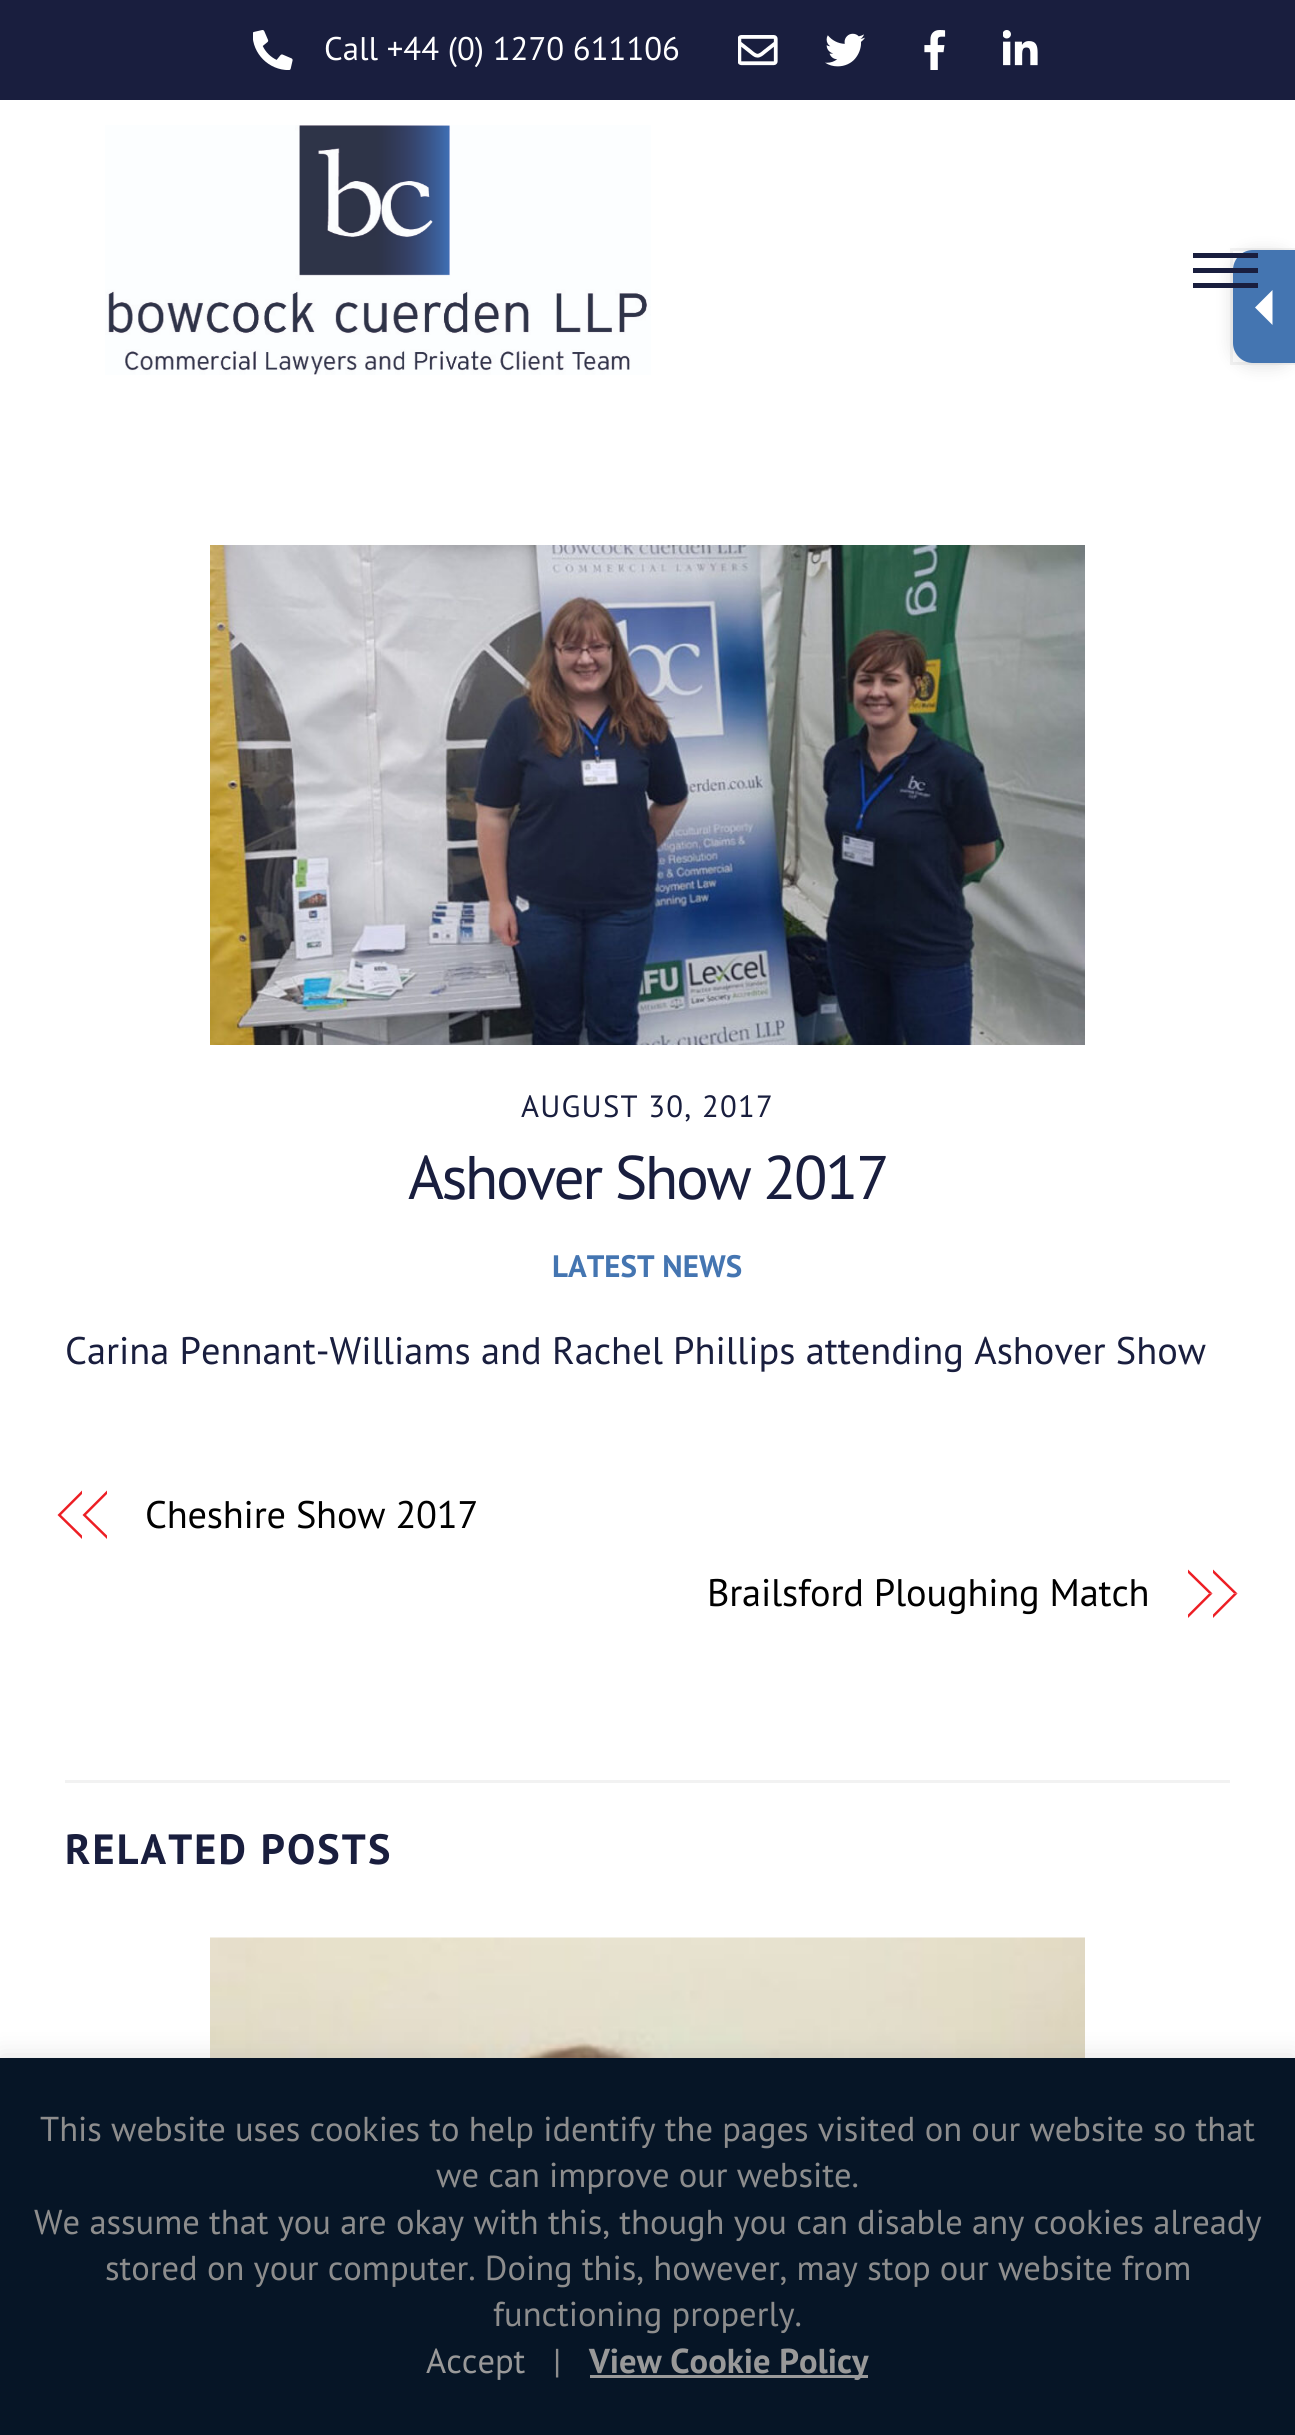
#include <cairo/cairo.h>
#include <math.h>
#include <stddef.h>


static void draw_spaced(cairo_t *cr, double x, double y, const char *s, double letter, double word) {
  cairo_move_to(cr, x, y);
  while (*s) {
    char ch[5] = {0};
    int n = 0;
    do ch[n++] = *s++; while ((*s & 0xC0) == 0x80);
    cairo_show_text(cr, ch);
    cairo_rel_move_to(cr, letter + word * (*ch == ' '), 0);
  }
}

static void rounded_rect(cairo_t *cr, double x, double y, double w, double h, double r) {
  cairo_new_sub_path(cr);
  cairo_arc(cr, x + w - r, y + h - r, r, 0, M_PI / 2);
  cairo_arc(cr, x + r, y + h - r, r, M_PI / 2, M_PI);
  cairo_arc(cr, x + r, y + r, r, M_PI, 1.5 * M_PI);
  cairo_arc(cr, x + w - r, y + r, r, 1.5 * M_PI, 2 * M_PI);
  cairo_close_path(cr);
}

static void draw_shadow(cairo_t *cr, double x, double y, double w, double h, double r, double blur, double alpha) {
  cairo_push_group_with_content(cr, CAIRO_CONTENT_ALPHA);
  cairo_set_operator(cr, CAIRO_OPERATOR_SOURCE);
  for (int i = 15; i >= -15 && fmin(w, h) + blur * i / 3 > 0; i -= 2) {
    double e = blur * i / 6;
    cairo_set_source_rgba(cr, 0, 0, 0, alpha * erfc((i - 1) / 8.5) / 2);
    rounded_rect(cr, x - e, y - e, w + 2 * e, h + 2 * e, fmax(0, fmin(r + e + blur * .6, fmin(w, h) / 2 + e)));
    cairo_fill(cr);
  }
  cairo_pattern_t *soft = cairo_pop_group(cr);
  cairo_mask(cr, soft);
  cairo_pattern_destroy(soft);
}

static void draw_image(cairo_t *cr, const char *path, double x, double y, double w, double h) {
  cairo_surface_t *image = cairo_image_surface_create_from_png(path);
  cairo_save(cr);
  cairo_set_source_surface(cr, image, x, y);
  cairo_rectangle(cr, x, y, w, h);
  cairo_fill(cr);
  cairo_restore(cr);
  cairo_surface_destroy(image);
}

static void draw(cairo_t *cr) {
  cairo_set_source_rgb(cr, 1, 1, 1);
  cairo_paint(cr);
  cairo_set_source_rgb(cr, 25 / 255.0, 30 / 255.0, 62 / 255.0);
  cairo_rectangle(cr, 0, 0, 1295, 100);
  cairo_fill(cr);
  draw_image(cr, "images/1.png", 253, 30, 40, 40);
  draw_image(cr, "images/2.png", 738, 35, 40, 31);
  draw_image(cr, "images/3.png", 825, 33, 40, 34);
  draw_image(cr, "images/4.png", 924, 30, 22, 40);
  draw_image(cr, "images/5.png", 1003, 30, 35, 36);
  draw_image(cr, "images/6.png", 105, 125, 546, 250);
  cairo_set_source_rgb(cr, 0, 0, 0);
  draw_shadow(cr, 1230, 250, 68, 118, 23, 7.5, 0.1);
  cairo_rectangle(cr, 1231.5, 249.5, 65, 114);
  cairo_set_source_rgba(cr, 0, 0, 0, 0.05);
  cairo_set_line_width(cr, 3);
  cairo_stroke(cr);
  cairo_set_source_rgb(cr, 68 / 255.0, 117 / 255.0, 177 / 255.0);
  cairo_new_path(cr);
  cairo_move_to(cr, 1253, 250);
  cairo_line_to(cr, 1295, 250);
  cairo_line_to(cr, 1295, 363);
  cairo_line_to(cr, 1253, 363);
  cairo_curve_to(cr, 1242, 363, 1233, 354, 1233, 343);
  cairo_line_to(cr, 1233, 270);
  cairo_curve_to(cr, 1233, 259, 1242, 250, 1253, 250);
  cairo_close_path(cr);
  cairo_fill(cr);
  cairo_set_source_rgb(cr, 1, 1, 1);
  cairo_new_path(cr);
  cairo_move_to(cr, 1272.5, 290);
  cairo_line_to(cr, 1272.5, 325);
  cairo_line_to(cr, 1255, 307.5);
  cairo_close_path(cr);
  cairo_fill(cr);
  cairo_set_source_rgb(cr, 25 / 255.0, 30 / 255.0, 62 / 255.0);
  cairo_rectangle(cr, 1193, 283, 65, 5);
  cairo_fill(cr);
  cairo_rectangle(cr, 1193, 253, 65, 5);
  cairo_fill(cr);
  cairo_rectangle(cr, 1193, 268, 65, 5);
  cairo_fill(cr);
  draw_image(cr, "images/7.png", 210, 545, 875, 500);
  cairo_set_source_rgb(cr, 237 / 255.0, 30 / 255.0, 36 / 255.0);
  cairo_new_path(cr);
  cairo_move_to(cr, 57.5, 1515);
  cairo_line_to(cr, 82, 1490.5);
  cairo_line_to(cr, 82, 1494);
  cairo_line_to(cr, 61, 1515);
  cairo_close_path(cr);
  cairo_move_to(cr, 82, 1539);
  cairo_line_to(cr, 57.5, 1515);
  cairo_line_to(cr, 61, 1515);
  cairo_line_to(cr, 82, 1535.5);
  cairo_close_path(cr);
  cairo_move_to(cr, 82.5, 1515);
  cairo_line_to(cr, 107, 1490.5);
  cairo_line_to(cr, 107, 1494);
  cairo_line_to(cr, 86, 1515);
  cairo_close_path(cr);
  cairo_fill(cr);
  cairo_new_path(cr);
  cairo_move_to(cr, 107, 1539);
  cairo_line_to(cr, 82.5, 1515);
  cairo_line_to(cr, 86, 1515);
  cairo_line_to(cr, 107, 1535.5);
  cairo_close_path(cr);
  cairo_fill(cr);
  cairo_new_path(cr);
  cairo_move_to(cr, 1213, 1569.5);
  cairo_line_to(cr, 1237.5, 1593.5);
  cairo_line_to(cr, 1234, 1593.5);
  cairo_line_to(cr, 1213, 1573);
  cairo_close_path(cr);
  cairo_fill(cr);
  cairo_new_path(cr);
  cairo_move_to(cr, 1237.5, 1593.5);
  cairo_line_to(cr, 1213, 1618);
  cairo_line_to(cr, 1213, 1614.5);
  cairo_line_to(cr, 1234, 1593.5);
  cairo_close_path(cr);
  cairo_move_to(cr, 1188, 1569.5);
  cairo_line_to(cr, 1212.5, 1593.5);
  cairo_line_to(cr, 1209, 1593.5);
  cairo_line_to(cr, 1188, 1573);
  cairo_close_path(cr);
  cairo_fill(cr);
  cairo_new_path(cr);
  cairo_move_to(cr, 1212.5, 1593.5);
  cairo_line_to(cr, 1188, 1618);
  cairo_line_to(cr, 1188, 1614.5);
  cairo_line_to(cr, 1209, 1593.5);
  cairo_close_path(cr);
  cairo_fill(cr);
  cairo_set_source_rgb(cr, 242 / 255.0, 242 / 255.0, 242 / 255.0);
  cairo_rectangle(cr, 65, 1780, 1165, 3);
  cairo_fill(cr);
  draw_image(cr, "images/8.png", 210, 1937, 875, 121);
  cairo_set_source_rgb(cr, 172 / 255.0, 171 / 255.0, 171 / 255.0);
  draw_shadow(cr, 0, 2055, 1295, 378, 0, 12.5, 0.3);
  cairo_set_source_rgb(cr, 6 / 255.0, 21 / 255.0, 38 / 255.0);
  cairo_rectangle(cr, 0, 2058, 1295, 377);
  cairo_fill(cr);
  cairo_set_source_rgb(cr, 153 / 255.0, 153 / 255.0, 153 / 255.0);
  cairo_rectangle(cr, 590, 2375, 278, 3);
  cairo_fill(cr);
  cairo_select_font_face(cr, "PT Sans", CAIRO_FONT_SLANT_NORMAL, CAIRO_FONT_WEIGHT_NORMAL);
  cairo_set_font_size(cr, 32.75);
  cairo_set_source_rgb(cr, 1, 1, 1);
  cairo_move_to(cr, 324, 60);
  cairo_show_text(cr, "Call +44 (0) 1270 611106");
  cairo_set_font_size(cr, 30.75);
  cairo_set_source_rgb(cr, 25 / 255.0, 30 / 255.0, 62 / 255.0);
  draw_spaced(cr, 521, 1117, "AUGUST 30, 2017", 1.25, 0);
  cairo_set_font_size(cr, 61.5);
  draw_spaced(cr, 408, 1199, "Ashover Show 2017", -2.5, 0);
  cairo_select_font_face(cr, "PT Sans", CAIRO_FONT_SLANT_NORMAL, CAIRO_FONT_WEIGHT_BOLD);
  cairo_set_font_size(cr, 31);
  cairo_set_source_rgb(cr, 68 / 255.0, 117 / 255.0, 177 / 255.0);
  cairo_move_to(cr, 552, 1277);
  cairo_show_text(cr, "LATEST NEWS");
  cairo_select_font_face(cr, "PT Sans", CAIRO_FONT_SLANT_NORMAL, CAIRO_FONT_WEIGHT_NORMAL);
  cairo_set_font_size(cr, 38.4);
  cairo_set_source_rgb(cr, 25 / 255.0, 30 / 255.0, 62 / 255.0);
  cairo_move_to(cr, 65, 1364);
  cairo_show_text(cr, "Carina Pennant-Williams and Rachel Phillips attending Ashover Show");
  cairo_set_source_rgb(cr, 0, 0, 0);
  draw_spaced(cr, 145, 1528, "Cheshire Show 2017", -0.2, 0);
  draw_spaced(cr, 707, 1606, "Brailsford Ploughing Match", -0.2, 0);
  cairo_select_font_face(cr, "PT Sans", CAIRO_FONT_SLANT_NORMAL, CAIRO_FONT_WEIGHT_BOLD);
  cairo_set_font_size(cr, 42.25);
  cairo_set_source_rgb(cr, 25 / 255.0, 30 / 255.0, 62 / 255.0);
  draw_spaced(cr, 65, 1864, "RELATED POSTS", 2.1, 0);
  cairo_select_font_face(cr, "PT Sans", CAIRO_FONT_SLANT_NORMAL, CAIRO_FONT_WEIGHT_NORMAL);
  cairo_set_font_size(cr, 34.55);
  cairo_set_source_rgb(cr, 141 / 255.0, 141 / 255.0, 141 / 255.0);
  cairo_move_to(cr, 40, 2141);
  cairo_show_text(cr, "This website uses cookies to help identify the pages visited on our website so that");
  cairo_move_to(cr, 436, 2187);
  cairo_show_text(cr, "we can improve our website.");
  cairo_move_to(cr, 34, 2234);
  cairo_show_text(cr, "We assume that you are okay with this, though you can disable any cookies already");
  cairo_move_to(cr, 105, 2280);
  cairo_show_text(cr, "stored on your computer. Doing this, however, may stop our website from");
  cairo_move_to(cr, 493, 2326);
  cairo_show_text(cr, "functioning properly.");
  cairo_set_source_rgb(cr, 153 / 255.0, 153 / 255.0, 153 / 255.0);
  cairo_move_to(cr, 426, 2373);
  cairo_show_text(cr, "Accept");
  cairo_set_source_rgb(cr, 141 / 255.0, 141 / 255.0, 141 / 255.0);
  cairo_move_to(cr, 553, 2373);
  cairo_show_text(cr, "|");
  cairo_select_font_face(cr, "PT Sans", CAIRO_FONT_SLANT_NORMAL, CAIRO_FONT_WEIGHT_BOLD);
  cairo_set_source_rgb(cr, 153 / 255.0, 153 / 255.0, 153 / 255.0);
  cairo_move_to(cr, 589, 2373);
  cairo_show_text(cr, "View Cookie Policy");
}

int main(void) {
  cairo_surface_t *surface = cairo_image_surface_create(CAIRO_FORMAT_RGB24, 1295, 2435);
  cairo_t *cr = cairo_create(surface);
  cairo_font_options_t *options = cairo_font_options_create();
  cairo_font_options_set_hint_metrics(options, CAIRO_HINT_METRICS_OFF);
  cairo_font_options_set_hint_style(options, CAIRO_HINT_STYLE_NONE);
  cairo_set_font_options(cr, options);
  cairo_set_miter_limit(cr, 4);
  draw(cr);
  cairo_surface_write_to_png(surface, "out.png");
  cairo_font_options_destroy(options);
  cairo_destroy(cr);
  cairo_surface_destroy(surface);
  return 0;
}
